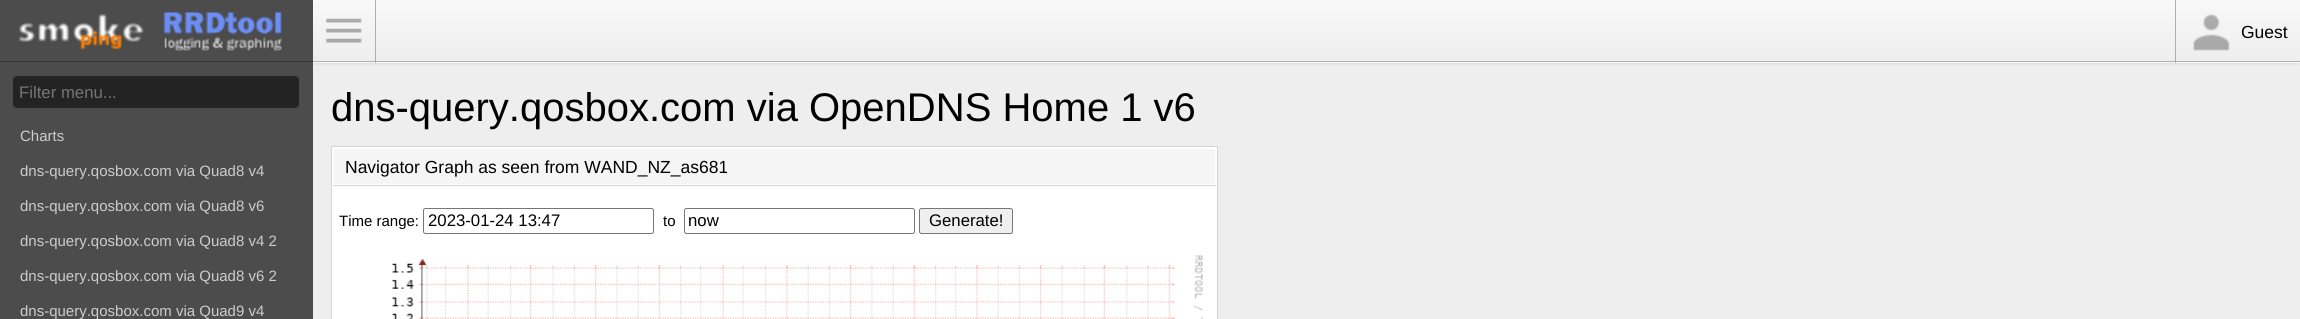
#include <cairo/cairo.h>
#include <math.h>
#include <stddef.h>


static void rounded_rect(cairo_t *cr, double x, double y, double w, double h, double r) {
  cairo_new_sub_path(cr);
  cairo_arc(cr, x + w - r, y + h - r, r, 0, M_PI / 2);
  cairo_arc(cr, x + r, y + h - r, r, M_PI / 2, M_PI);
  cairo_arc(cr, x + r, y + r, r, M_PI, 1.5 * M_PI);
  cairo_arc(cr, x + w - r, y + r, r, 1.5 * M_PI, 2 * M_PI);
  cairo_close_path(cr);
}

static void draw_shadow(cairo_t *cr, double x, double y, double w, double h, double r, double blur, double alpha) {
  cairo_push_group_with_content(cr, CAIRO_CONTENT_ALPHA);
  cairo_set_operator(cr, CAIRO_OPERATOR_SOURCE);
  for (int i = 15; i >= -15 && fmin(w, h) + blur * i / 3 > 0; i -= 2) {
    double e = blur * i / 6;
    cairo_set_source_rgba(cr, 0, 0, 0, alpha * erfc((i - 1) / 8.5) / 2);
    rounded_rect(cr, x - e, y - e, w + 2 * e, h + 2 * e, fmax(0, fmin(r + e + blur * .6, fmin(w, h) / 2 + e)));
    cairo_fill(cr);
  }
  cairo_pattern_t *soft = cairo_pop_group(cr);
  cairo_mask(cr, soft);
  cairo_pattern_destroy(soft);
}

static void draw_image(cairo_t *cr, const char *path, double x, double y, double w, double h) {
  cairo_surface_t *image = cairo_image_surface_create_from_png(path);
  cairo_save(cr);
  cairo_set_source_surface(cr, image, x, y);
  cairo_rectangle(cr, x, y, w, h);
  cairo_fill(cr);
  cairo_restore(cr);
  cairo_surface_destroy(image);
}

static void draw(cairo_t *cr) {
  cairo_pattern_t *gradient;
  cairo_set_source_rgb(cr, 238 / 255.0, 238 / 255.0, 238 / 255.0);
  cairo_paint(cr);
  cairo_set_source_rgb(cr, 76 / 255.0, 76 / 255.0, 76 / 255.0);
  cairo_rectangle(cr, 0, 0, 313, 319);
  cairo_fill(cr);
  cairo_set_source_rgb(cr, 55 / 255.0, 55 / 255.0, 55 / 255.0);
  cairo_rectangle(cr, 0, 61, 313, 1);
  cairo_fill(cr);
  cairo_set_source_rgb(cr, 0, 0, 0);
  draw_shadow(cr, 314, 5, 1985, 60, 0, 0.5, 0.05);
  gradient = cairo_pattern_create_linear(1306, 0, 1306, 61);
  cairo_pattern_add_color_stop_rgba(gradient, 0, 248 / 255.0, 248 / 255.0, 248 / 255.0, 1);
  cairo_pattern_add_color_stop_rgba(gradient, 1, 238 / 255.0, 238 / 255.0, 238 / 255.0, 1);
  cairo_set_source(cr, gradient);
  cairo_pattern_destroy(gradient);
  cairo_rectangle(cr, 313, 0, 1987, 61);
  cairo_fill(cr);
  gradient = cairo_pattern_create_linear(1306, 61, 1306, 123);
  cairo_pattern_add_color_stop_rgba(gradient, 0, 248 / 255.0, 248 / 255.0, 248 / 255.0, 1);
  cairo_pattern_add_color_stop_rgba(gradient, 1, 238 / 255.0, 238 / 255.0, 238 / 255.0, 1);
  cairo_set_source(cr, gradient);
  cairo_pattern_destroy(gradient);
  cairo_rectangle(cr, 313, 62, 1987, 1);
  cairo_fill(cr);
  cairo_set_source_rgb(cr, 175 / 255.0, 175 / 255.0, 175 / 255.0);
  cairo_rectangle(cr, 313, 61, 1987, 1);
  cairo_fill(cr);
  cairo_rectangle(cr, 375, 0, 1, 63);
  cairo_fill(cr);
  draw_image(cr, "images/1.png", 325, 18, 37, 25);
  cairo_rectangle(cr, 2175, 0, 1, 63);
  cairo_fill(cr);
  draw_image(cr, "images/2.png", 2193, 14, 37, 37);
  draw_image(cr, "images/3.png", 18, 13, 126, 37);
  draw_image(cr, "images/4.png", 163, 12, 119, 39);
  cairo_set_source_rgb(cr, 35 / 255.0, 35 / 255.0, 35 / 255.0);
  rounded_rect(cr, 13, 76, 286, 32, 4);
  cairo_fill(cr);
  cairo_set_source_rgb(cr, 1, 1, 1);
  cairo_rectangle(cr, 331.5, 146.5, 886, 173);
  cairo_fill_preserve(cr);
  cairo_set_source_rgb(cr, 212 / 255.0, 212 / 255.0, 212 / 255.0);
  cairo_set_line_width(cr, 1);
  cairo_stroke(cr);
  cairo_set_source_rgb(cr, 245 / 255.0, 245 / 255.0, 245 / 255.0);
  cairo_rectangle(cr, 334, 149, 881, 35);
  cairo_fill(cr);
  cairo_set_source_rgb(cr, 212 / 255.0, 212 / 255.0, 212 / 255.0);
  cairo_rectangle(cr, 333, 185, 883, 1);
  cairo_fill(cr);
  rounded_rect(cr, 423.5, 208.5, 230, 25, 2);
  cairo_set_source_rgb(cr, 118 / 255.0, 118 / 255.0, 118 / 255.0);
  cairo_stroke(cr);
  rounded_rect(cr, 684.5, 208.5, 230, 25, 2);
  cairo_stroke(cr);
  cairo_set_source_rgb(cr, 239 / 255.0, 239 / 255.0, 239 / 255.0);
  rounded_rect(cr, 919.5, 208.5, 93, 25, 2);
  cairo_fill_preserve(cr);
  cairo_set_source_rgb(cr, 118 / 255.0, 118 / 255.0, 118 / 255.0);
  cairo_stroke(cr);
  draw_image(cr, "images/5.png", 392, 255, 811, 64);
  cairo_select_font_face(cr, "Liberation Sans", CAIRO_FONT_SLANT_NORMAL, CAIRO_FONT_WEIGHT_NORMAL);
  cairo_set_font_size(cr, 17.5);
  cairo_set_source_rgb(cr, 0, 0, 0);
  cairo_move_to(cr, 2241, 38);
  cairo_show_text(cr, "Guest");
  cairo_set_font_size(cr, 16.75);
  cairo_set_source_rgb(cr, 117 / 255.0, 117 / 255.0, 117 / 255.0);
  cairo_move_to(cr, 19, 98);
  cairo_show_text(cr, "Filter menu...");
  cairo_set_font_size(cr, 15);
  cairo_set_source_rgb(cr, 204 / 255.0, 204 / 255.0, 204 / 255.0);
  cairo_move_to(cr, 20, 141);
  cairo_show_text(cr, "Charts");
  cairo_move_to(cr, 20, 176);
  cairo_show_text(cr, "dns-query.qosbox.com via Quad8 v4");
  cairo_move_to(cr, 20, 211);
  cairo_show_text(cr, "dns-query.qosbox.com via Quad8 v6");
  cairo_move_to(cr, 20, 246);
  cairo_show_text(cr, "dns-query.qosbox.com via Quad8 v4 2");
  cairo_move_to(cr, 20, 281);
  cairo_show_text(cr, "dns-query.qosbox.com via Quad8 v6 2");
  cairo_move_to(cr, 20, 316);
  cairo_show_text(cr, "dns-query.qosbox.com via Quad9 v4");
  cairo_set_font_size(cr, 40);
  cairo_set_source_rgb(cr, 0, 0, 0);
  cairo_move_to(cr, 331, 121);
  cairo_show_text(cr, "dns-query.qosbox.com via OpenDNS Home 1 v6");
  cairo_set_font_size(cr, 17.5);
  cairo_move_to(cr, 345, 173);
  cairo_show_text(cr, "Navigator Graph as seen from WAND_NZ_as681");
  cairo_set_font_size(cr, 15);
  cairo_move_to(cr, 339, 226);
  cairo_show_text(cr, "Time range:");
  cairo_set_font_size(cr, 16.75);
  cairo_move_to(cr, 428, 226);
  cairo_show_text(cr, "2023-01-24 13:47");
  cairo_set_font_size(cr, 15);
  cairo_move_to(cr, 663, 226);
  cairo_show_text(cr, "to");
  cairo_set_font_size(cr, 16.75);
  cairo_move_to(cr, 688, 226);
  cairo_show_text(cr, "now");
  cairo_move_to(cr, 929, 226);
  cairo_show_text(cr, "Generate!");
}

int main(void) {
  cairo_surface_t *surface = cairo_image_surface_create(CAIRO_FORMAT_RGB24, 2300, 319);
  cairo_t *cr = cairo_create(surface);
  cairo_font_options_t *options = cairo_font_options_create();
  cairo_font_options_set_hint_metrics(options, CAIRO_HINT_METRICS_OFF);
  cairo_font_options_set_hint_style(options, CAIRO_HINT_STYLE_NONE);
  cairo_set_font_options(cr, options);
  cairo_set_miter_limit(cr, 4);
  draw(cr);
  cairo_surface_write_to_png(surface, "out.png");
  cairo_font_options_destroy(options);
  cairo_destroy(cr);
  cairo_surface_destroy(surface);
  return 0;
}
